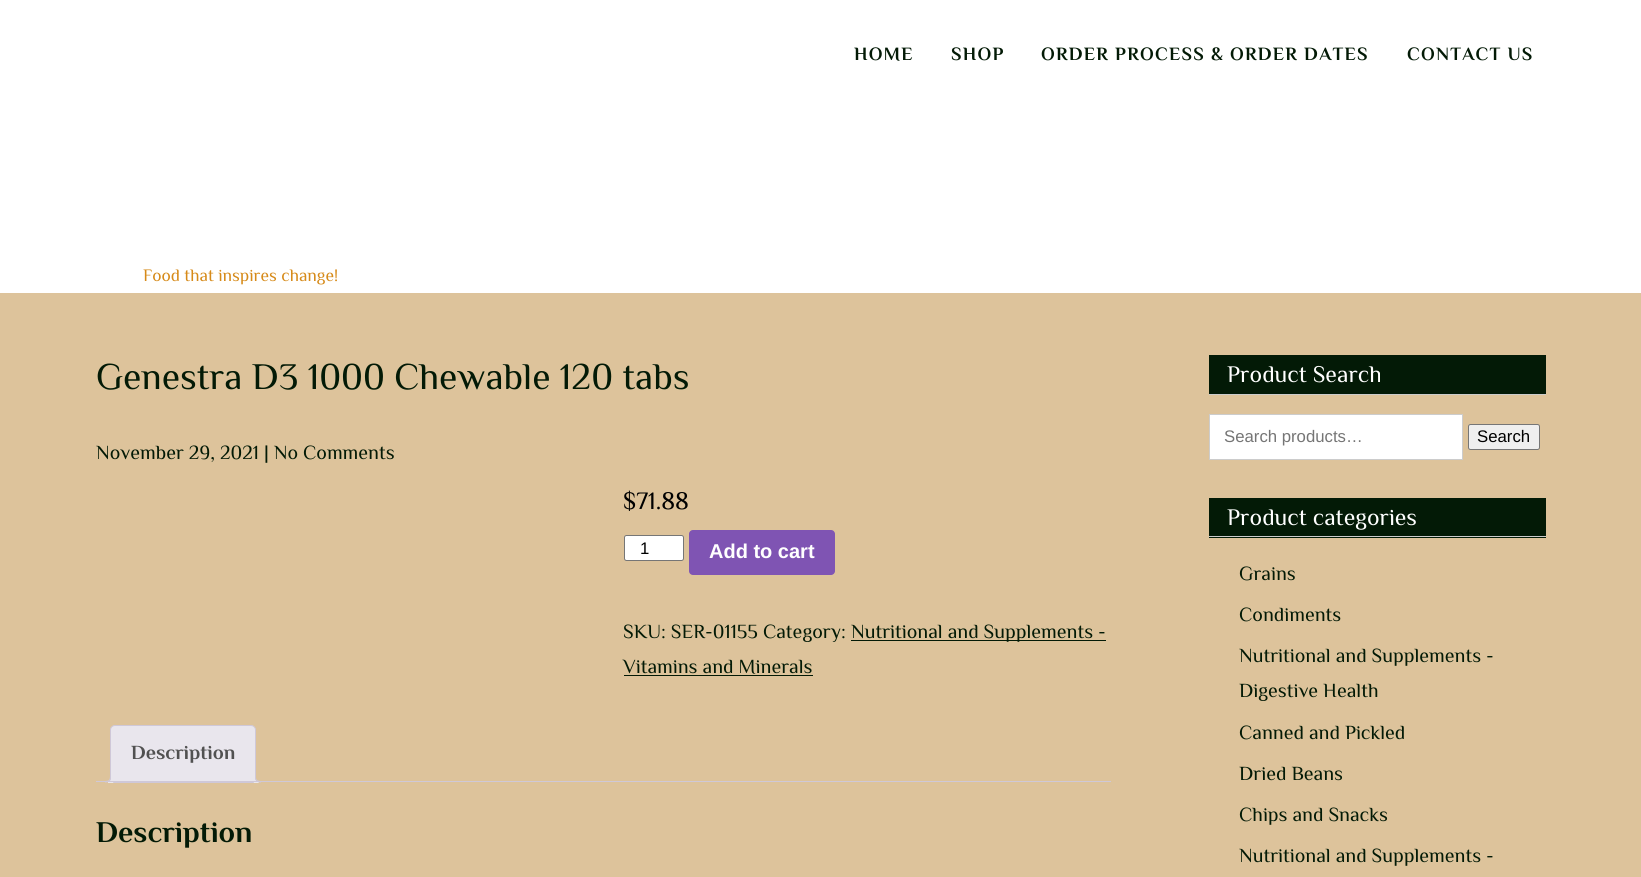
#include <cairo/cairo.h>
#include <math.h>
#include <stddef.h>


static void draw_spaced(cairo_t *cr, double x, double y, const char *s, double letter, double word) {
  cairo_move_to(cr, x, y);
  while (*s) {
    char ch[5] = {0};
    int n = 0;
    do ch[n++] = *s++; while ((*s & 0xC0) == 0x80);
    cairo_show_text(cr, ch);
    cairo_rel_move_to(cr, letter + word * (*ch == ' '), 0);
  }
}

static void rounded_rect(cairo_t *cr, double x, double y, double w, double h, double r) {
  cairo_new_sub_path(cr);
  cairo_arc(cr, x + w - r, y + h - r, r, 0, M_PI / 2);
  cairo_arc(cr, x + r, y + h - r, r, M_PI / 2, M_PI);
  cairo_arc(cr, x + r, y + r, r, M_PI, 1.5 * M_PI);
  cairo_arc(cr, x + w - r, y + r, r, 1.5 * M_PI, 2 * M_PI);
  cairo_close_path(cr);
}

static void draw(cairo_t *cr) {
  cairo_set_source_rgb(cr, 221 / 255.0, 195 / 255.0, 155 / 255.0);
  cairo_paint(cr);
  cairo_set_source_rgb(cr, 1, 1, 1);
  cairo_rectangle(cr, 0, 0, 1641, 293);
  cairo_fill(cr);
  rounded_rect(cr, 624.5, 535.5, 59, 25, 2);
  cairo_fill_preserve(cr);
  cairo_set_source_rgb(cr, 118 / 255.0, 118 / 255.0, 118 / 255.0);
  cairo_set_line_width(cr, 1);
  cairo_stroke(cr);
  cairo_set_source_rgb(cr, 127 / 255.0, 84 / 255.0, 179 / 255.0);
  rounded_rect(cr, 689, 530, 146, 45, 4);
  cairo_fill(cr);
  cairo_set_source_rgb(cr, 3 / 255.0, 26 / 255.0, 6 / 255.0);
  cairo_rectangle(cr, 851, 640, 255, 1);
  cairo_fill(cr);
  cairo_rectangle(cr, 624, 675, 189, 1);
  cairo_fill(cr);
  cairo_set_source_rgb(cr, 233 / 255.0, 230 / 255.0, 237 / 255.0);
  cairo_new_path(cr);
  cairo_move_to(cr, 115, 725.5);
  cairo_line_to(cr, 251, 725.5);
  cairo_curve_to(cr, 253.5, 725.5, 255.5, 727.5, 255.5, 730);
  cairo_line_to(cr, 255.5, 782.5);
  cairo_line_to(cr, 110.5, 782.5);
  cairo_line_to(cr, 110.5, 730);
  cairo_curve_to(cr, 110.5, 727.5, 112.5, 725.5, 115, 725.5);
  cairo_close_path(cr);
  cairo_fill_preserve(cr);
  cairo_set_source_rgb(cr, 207 / 255.0, 200 / 255.0, 216 / 255.0);
  cairo_stroke(cr);
  cairo_save(cr);
  cairo_rectangle(cr, 96, 725, 1015, 58);
  cairo_clip(cr);
  cairo_set_source_rgb(cr, 233 / 255.0, 230 / 255.0, 237 / 255.0);
  cairo_new_path(cr);
  cairo_move_to(cr, 108, 782);
  cairo_line_to(cr, 108, 785);
  cairo_curve_to(cr, 112, 785, 114, 783, 114, 779);
  cairo_line_to(cr, 111, 779);
  cairo_curve_to(cr, 110.5, 780.5, 109.5, 781.5, 108, 782);
  cairo_close_path(cr);
  cairo_fill(cr);
  cairo_restore(cr);
  cairo_set_fill_rule(cr, CAIRO_FILL_RULE_EVEN_ODD);
  cairo_new_path(cr);
  cairo_move_to(cr, 105, 776);
  cairo_line_to(cr, 111, 776);
  cairo_curve_to(cr, 111, 780.5, 109.5, 782.5, 105, 782.5);
  cairo_close_path(cr);
  cairo_move_to(cr, 105, 776);
  cairo_line_to(cr, 110, 776);
  cairo_curve_to(cr, 110, 780, 108.5, 781, 105, 781);
  cairo_close_path(cr);
  cairo_fill(cr);
  cairo_save(cr);
  cairo_set_fill_rule(cr, CAIRO_FILL_RULE_WINDING);
  cairo_rectangle(cr, 96, 725, 1015, 58);
  cairo_clip(cr);
  cairo_set_source_rgb(cr, 233 / 255.0, 230 / 255.0, 237 / 255.0);
  cairo_new_path(cr);
  cairo_move_to(cr, 253, 779);
  cairo_curve_to(cr, 253, 783, 255, 785, 259, 785);
  cairo_line_to(cr, 259, 782.5);
  cairo_curve_to(cr, 257, 782, 256, 780.5, 255, 779);
  cairo_close_path(cr);
  cairo_fill(cr);
  cairo_restore(cr);
  cairo_new_path(cr);
  cairo_move_to(cr, 255, 776);
  cairo_line_to(cr, 261, 776);
  cairo_line_to(cr, 261, 782.5);
  cairo_curve_to(cr, 258, 782.5, 255, 781, 255, 777.5);
  cairo_close_path(cr);
  cairo_move_to(cr, 256, 776);
  cairo_line_to(cr, 261, 776);
  cairo_line_to(cr, 261, 781);
  cairo_curve_to(cr, 259, 781, 256, 780.5, 256, 777.5);
  cairo_close_path(cr);
  cairo_fill(cr);
  cairo_rectangle(cr, 96, 781, 1015, 1);
  cairo_fill(cr);
  cairo_set_source_rgb(cr, 3 / 255.0, 26 / 255.0, 6 / 255.0);
  cairo_rectangle(cr, 1209, 355, 337, 39);
  cairo_fill(cr);
  cairo_set_source_rgb(cr, 204 / 255.0, 204 / 255.0, 204 / 255.0);
  cairo_rectangle(cr, 1209, 394, 337, 1);
  cairo_fill(cr);
  cairo_set_source_rgb(cr, 1, 1, 1);
  cairo_rectangle(cr, 1209.5, 414.5, 253, 45);
  cairo_fill_preserve(cr);
  cairo_set_source_rgb(cr, 204 / 255.0, 204 / 255.0, 204 / 255.0);
  cairo_stroke(cr);
  cairo_set_source_rgb(cr, 239 / 255.0, 239 / 255.0, 239 / 255.0);
  rounded_rect(cr, 1468.5, 424.5, 71, 25, 2);
  cairo_fill_preserve(cr);
  cairo_set_source_rgb(cr, 118 / 255.0, 118 / 255.0, 118 / 255.0);
  cairo_stroke(cr);
  cairo_set_source_rgb(cr, 3 / 255.0, 26 / 255.0, 6 / 255.0);
  cairo_rectangle(cr, 1209, 498, 337, 40);
  cairo_fill(cr);
  cairo_set_source_rgb(cr, 204 / 255.0, 204 / 255.0, 204 / 255.0);
  cairo_rectangle(cr, 1209, 536, 337, 1);
  cairo_fill(cr);
  cairo_select_font_face(cr, "Philosopher", CAIRO_FONT_SLANT_NORMAL, CAIRO_FONT_WEIGHT_BOLD);
  cairo_set_font_size(cr, 18.75);
  cairo_set_source_rgb(cr, 3 / 255.0, 26 / 255.0, 6 / 255.0);
  draw_spaced(cr, 854, 60, "HOME", 1.25, 0);
  draw_spaced(cr, 951, 60, "SHOP", 1.25, 0);
  draw_spaced(cr, 1041, 60, "ORDER PROCESS & ORDER DATES", 1.25, 0);
  draw_spaced(cr, 1407, 60, "CONTACT US", 1.25, 0);
  cairo_select_font_face(cr, "Philosopher", CAIRO_FONT_SLANT_NORMAL, CAIRO_FONT_WEIGHT_NORMAL);
  cairo_set_font_size(cr, 17.5);
  cairo_set_source_rgb(cr, 214 / 255.0, 138 / 255.0, 25 / 255.0);
  cairo_move_to(cr, 143, 281);
  cairo_show_text(cr, "Food that inspires change!");
  cairo_set_font_size(cr, 37.5);
  cairo_set_source_rgb(cr, 3 / 255.0, 26 / 255.0, 6 / 255.0);
  cairo_move_to(cr, 96, 389);
  cairo_show_text(cr, "Genestra D3 1000 Chewable 120 tabs");
  cairo_set_font_size(cr, 20);
  cairo_move_to(cr, 96, 459);
  cairo_show_text(cr, "November 29, 2021 | No Comments");
  cairo_set_font_size(cr, 25);
  cairo_set_source_rgb(cr, 0, 0, 0);
  cairo_move_to(cr, 623, 509);
  cairo_show_text(cr, "$71.88");
  cairo_select_font_face(cr, "Liberation Sans", CAIRO_FONT_SLANT_NORMAL, CAIRO_FONT_WEIGHT_NORMAL);
  cairo_set_font_size(cr, 16.75);
  cairo_move_to(cr, 640, 554);
  cairo_show_text(cr, "1");
  cairo_select_font_face(cr, "Liberation Sans", CAIRO_FONT_SLANT_NORMAL, CAIRO_FONT_WEIGHT_BOLD);
  cairo_set_font_size(cr, 20);
  cairo_set_source_rgb(cr, 1, 1, 1);
  cairo_move_to(cr, 709, 558);
  cairo_show_text(cr, "Add to cart");
  cairo_select_font_face(cr, "Philosopher", CAIRO_FONT_SLANT_NORMAL, CAIRO_FONT_WEIGHT_NORMAL);
  cairo_set_source_rgb(cr, 3 / 255.0, 26 / 255.0, 6 / 255.0);
  cairo_move_to(cr, 623, 638);
  cairo_show_text(cr, "SKU: SER-01155 Category:");
  cairo_move_to(cr, 851, 638);
  cairo_show_text(cr, "Nutritional and Supplements -");
  cairo_move_to(cr, 623, 673);
  cairo_show_text(cr, "Vitamins and Minerals");
  cairo_select_font_face(cr, "Philosopher", CAIRO_FONT_SLANT_NORMAL, CAIRO_FONT_WEIGHT_BOLD);
  cairo_set_source_rgb(cr, 81 / 255.0, 81 / 255.0, 81 / 255.0);
  cairo_move_to(cr, 131, 759);
  cairo_show_text(cr, "Description");
  cairo_set_font_size(cr, 30);
  cairo_set_source_rgb(cr, 3 / 255.0, 26 / 255.0, 6 / 255.0);
  cairo_move_to(cr, 96, 842);
  cairo_show_text(cr, "Description");
  cairo_select_font_face(cr, "Philosopher", CAIRO_FONT_SLANT_NORMAL, CAIRO_FONT_WEIGHT_NORMAL);
  cairo_set_font_size(cr, 23.75);
  cairo_set_source_rgb(cr, 1, 1, 1);
  cairo_move_to(cr, 1227, 382);
  cairo_show_text(cr, "Product Search");
  cairo_select_font_face(cr, "Liberation Sans", CAIRO_FONT_SLANT_NORMAL, CAIRO_FONT_WEIGHT_NORMAL);
  cairo_set_font_size(cr, 16.75);
  cairo_set_source_rgb(cr, 117 / 255.0, 117 / 255.0, 117 / 255.0);
  cairo_move_to(cr, 1224, 442);
  cairo_show_text(cr, "Search products…");
  cairo_set_source_rgb(cr, 0, 0, 0);
  cairo_move_to(cr, 1477, 442);
  cairo_show_text(cr, "Search");
  cairo_select_font_face(cr, "Philosopher", CAIRO_FONT_SLANT_NORMAL, CAIRO_FONT_WEIGHT_NORMAL);
  cairo_set_font_size(cr, 23.75);
  cairo_set_source_rgb(cr, 1, 1, 1);
  cairo_move_to(cr, 1227, 525);
  cairo_show_text(cr, "Product categories");
  cairo_set_font_size(cr, 20);
  cairo_set_source_rgb(cr, 3 / 255.0, 26 / 255.0, 6 / 255.0);
  cairo_move_to(cr, 1239, 580);
  cairo_show_text(cr, "Grains");
  cairo_move_to(cr, 1239, 621);
  cairo_show_text(cr, "Condiments");
  cairo_move_to(cr, 1239, 662);
  cairo_show_text(cr, "Nutritional and Supplements -");
  cairo_move_to(cr, 1239, 697);
  cairo_show_text(cr, "Digestive Health");
  cairo_move_to(cr, 1239, 739);
  cairo_show_text(cr, "Canned and Pickled");
  cairo_move_to(cr, 1239, 780);
  cairo_show_text(cr, "Dried Beans");
  cairo_move_to(cr, 1239, 821);
  cairo_show_text(cr, "Chips and Snacks");
  cairo_move_to(cr, 1239, 862);
  cairo_show_text(cr, "Nutritional and Supplements -");
}

int main(void) {
  cairo_surface_t *surface = cairo_image_surface_create(CAIRO_FORMAT_RGB24, 1641, 877);
  cairo_t *cr = cairo_create(surface);
  cairo_font_options_t *options = cairo_font_options_create();
  cairo_font_options_set_hint_metrics(options, CAIRO_HINT_METRICS_OFF);
  cairo_font_options_set_hint_style(options, CAIRO_HINT_STYLE_NONE);
  cairo_set_font_options(cr, options);
  cairo_set_miter_limit(cr, 4);
  draw(cr);
  cairo_surface_write_to_png(surface, "out.png");
  cairo_font_options_destroy(options);
  cairo_destroy(cr);
  cairo_surface_destroy(surface);
  return 0;
}
